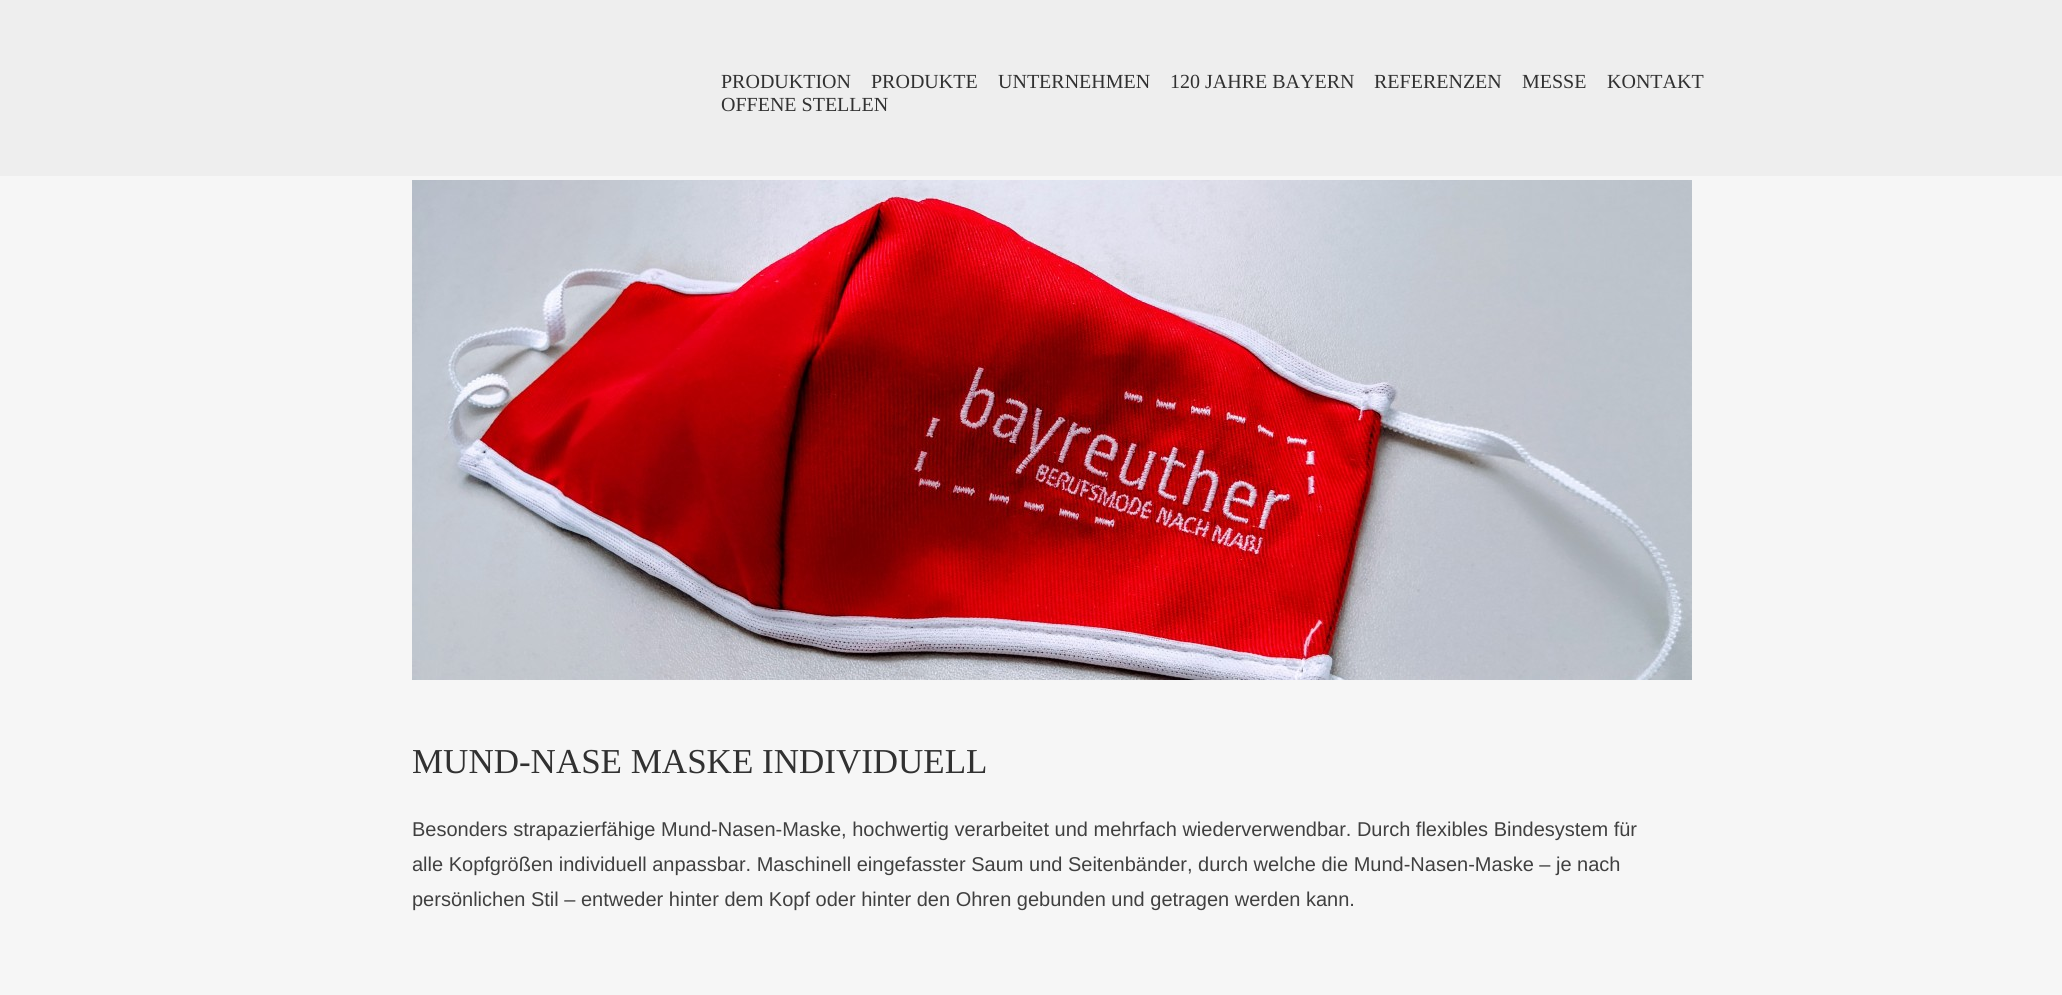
#include <cairo/cairo.h>
#include <math.h>
#include <stddef.h>


static void draw_image(cairo_t *cr, const char *path, double x, double y, double w, double h) {
  cairo_surface_t *image = cairo_image_surface_create_from_png(path);
  cairo_save(cr);
  cairo_set_source_surface(cr, image, x, y);
  cairo_rectangle(cr, x, y, w, h);
  cairo_fill(cr);
  cairo_restore(cr);
  cairo_surface_destroy(image);
}

static void draw(cairo_t *cr) {
  cairo_set_source_rgb(cr, 246 / 255.0, 246 / 255.0, 246 / 255.0);
  cairo_paint(cr);
  cairo_set_source_rgb(cr, 238 / 255.0, 238 / 255.0, 238 / 255.0);
  cairo_rectangle(cr, 0, 0, 2062, 176);
  cairo_fill(cr);
  draw_image(cr, "images/1.png", 412, 180, 1280, 500);
  cairo_select_font_face(cr, "Liberation Serif", CAIRO_FONT_SLANT_NORMAL, CAIRO_FONT_WEIGHT_NORMAL);
  cairo_set_font_size(cr, 20);
  cairo_set_source_rgb(cr, 49 / 255.0, 49 / 255.0, 49 / 255.0);
  cairo_move_to(cr, 721, 88);
  cairo_show_text(cr, "PRODUKTION");
  cairo_move_to(cr, 871, 88);
  cairo_show_text(cr, "PRODUKTE");
  cairo_move_to(cr, 998, 88);
  cairo_show_text(cr, "UNTERNEHMEN");
  cairo_move_to(cr, 1170, 88);
  cairo_show_text(cr, "120 JAHRE BAYERN");
  cairo_move_to(cr, 1374, 88);
  cairo_show_text(cr, "REFERENZEN");
  cairo_move_to(cr, 1522, 88);
  cairo_show_text(cr, "MESSE");
  cairo_move_to(cr, 1607, 88);
  cairo_show_text(cr, "KONTAKT");
  cairo_move_to(cr, 721, 111);
  cairo_show_text(cr, "OFFENE STELLEN");
  cairo_set_font_size(cr, 35);
  cairo_move_to(cr, 412, 773);
  cairo_show_text(cr, "MUND-NASE MASKE INDIVIDUELL");
  cairo_select_font_face(cr, "Liberation Sans", CAIRO_FONT_SLANT_NORMAL, CAIRO_FONT_WEIGHT_NORMAL);
  cairo_set_font_size(cr, 20);
  cairo_set_source_rgb(cr, 64 / 255.0, 64 / 255.0, 64 / 255.0);
  cairo_move_to(cr, 412, 836);
  cairo_show_text(cr, "Besonders strapazierfähige Mund-Nasen-Maske, hochwertig verarbeitet und mehrfach wiederverwendbar. Durch flexibles Bindesystem für");
  cairo_move_to(cr, 412, 871);
  cairo_show_text(cr, "alle Kopfgrößen individuell anpassbar. Maschinell eingefasster Saum und Seitenbänder, durch welche die Mund-Nasen-Maske – je nach");
  cairo_move_to(cr, 412, 906);
  cairo_show_text(cr, "persönlichen Stil – entweder hinter dem Kopf oder hinter den Ohren gebunden und getragen werden kann.");
}

int main(void) {
  cairo_surface_t *surface = cairo_image_surface_create(CAIRO_FORMAT_RGB24, 2062, 995);
  cairo_t *cr = cairo_create(surface);
  cairo_font_options_t *options = cairo_font_options_create();
  cairo_font_options_set_hint_metrics(options, CAIRO_HINT_METRICS_OFF);
  cairo_font_options_set_hint_style(options, CAIRO_HINT_STYLE_NONE);
  cairo_set_font_options(cr, options);
  cairo_set_miter_limit(cr, 4);
  draw(cr);
  cairo_surface_write_to_png(surface, "out.png");
  cairo_font_options_destroy(options);
  cairo_destroy(cr);
  cairo_surface_destroy(surface);
  return 0;
}
